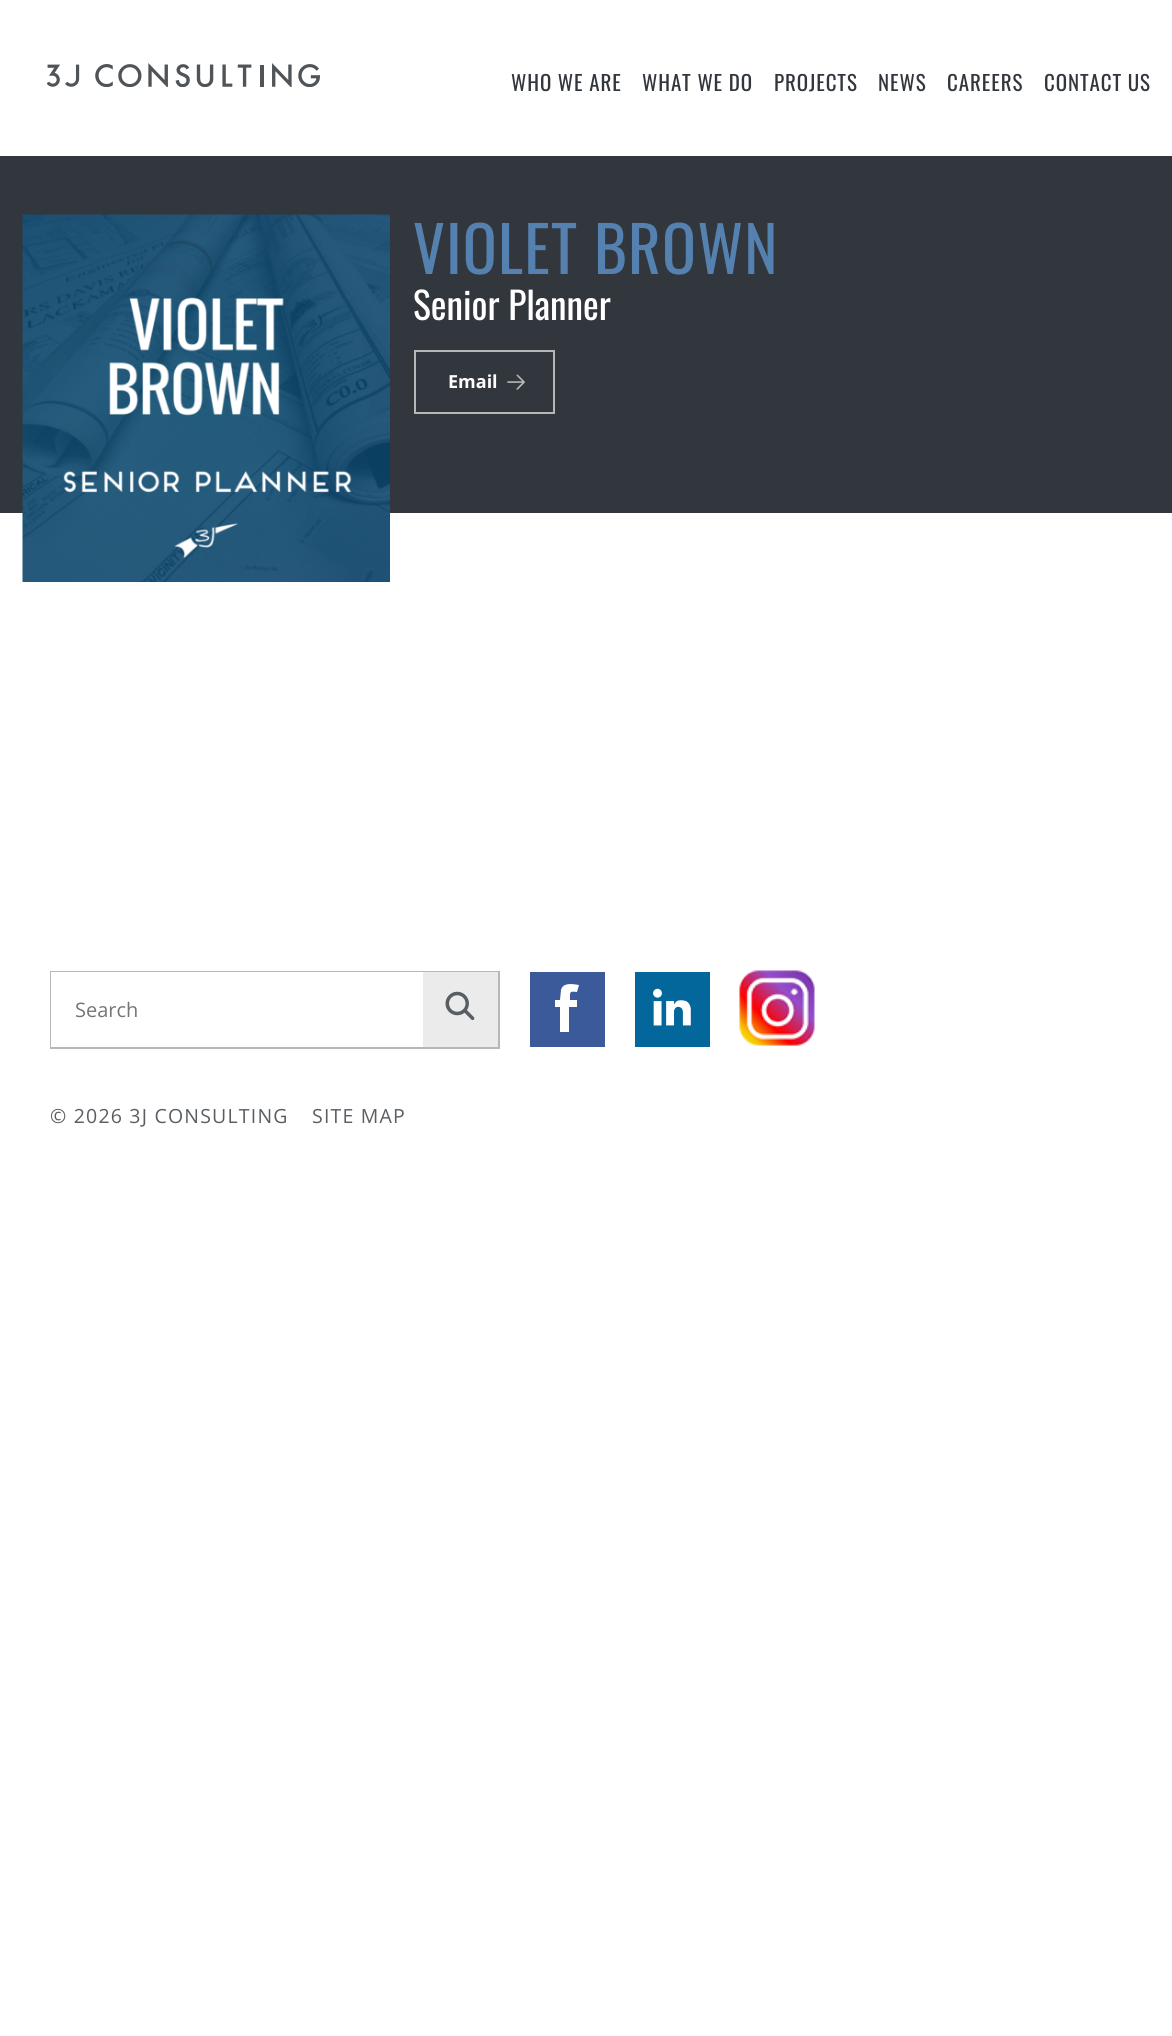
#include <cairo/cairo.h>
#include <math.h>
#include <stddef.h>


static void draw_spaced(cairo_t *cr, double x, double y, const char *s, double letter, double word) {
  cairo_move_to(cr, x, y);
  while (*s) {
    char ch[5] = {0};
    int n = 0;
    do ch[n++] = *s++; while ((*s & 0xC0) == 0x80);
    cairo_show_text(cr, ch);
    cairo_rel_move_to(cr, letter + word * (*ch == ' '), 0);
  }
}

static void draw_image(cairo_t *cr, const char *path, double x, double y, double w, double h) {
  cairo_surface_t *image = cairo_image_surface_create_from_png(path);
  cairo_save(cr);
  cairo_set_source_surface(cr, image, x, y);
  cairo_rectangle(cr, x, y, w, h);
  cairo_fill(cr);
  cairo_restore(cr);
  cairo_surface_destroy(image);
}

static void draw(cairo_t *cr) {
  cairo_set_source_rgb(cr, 1, 1, 1);
  cairo_paint(cr);
  draw_image(cr, "images/1.png", 47, 63, 273, 24);
  cairo_set_source_rgb(cr, 50 / 255.0, 55 / 255.0, 61 / 255.0);
  cairo_rectangle(cr, 0, 156, 1172, 357);
  cairo_fill(cr);
  draw_image(cr, "images/2.png", 22, 214, 368, 368);
  cairo_rectangle(cr, 415, 351, 139, 62);
  cairo_set_source_rgb(cr, 183 / 255.0, 183 / 255.0, 183 / 255.0);
  cairo_stroke(cr);
  draw_image(cr, "images/3.png", 507, 374, 18, 16);
  cairo_rectangle(cr, 51, 972, 448, 76);
  cairo_stroke(cr);
  cairo_set_source_rgb(cr, 1, 1, 1);
  cairo_rectangle(cr, 51, 972, 372, 75);
  cairo_fill(cr);
  cairo_set_source_rgb(cr, 235 / 255.0, 235 / 255.0, 235 / 255.0);
  cairo_rectangle(cr, 423, 972, 75, 75);
  cairo_fill(cr);
  draw_image(cr, "images/4.png", 445, 991, 30, 30);
  cairo_set_source_rgb(cr, 59 / 255.0, 90 / 255.0, 154 / 255.0);
  cairo_rectangle(cr, 530, 972, 75, 75);
  cairo_fill(cr);
  cairo_set_source_rgb(cr, 1, 1, 1);
  cairo_new_path(cr);
  cairo_move_to(cr, 555, 1000);
  cairo_line_to(cr, 560, 1000);
  cairo_line_to(cr, 561, 990);
  cairo_curve_to(cr, 563, 982, 573, 984, 579, 985);
  cairo_line_to(cr, 577, 992);
  cairo_curve_to(cr, 569, 991, 570, 992, 570, 1000);
  cairo_line_to(cr, 577, 1000);
  cairo_line_to(cr, 577, 1007);
  cairo_line_to(cr, 569, 1007);
  cairo_line_to(cr, 569, 1032);
  cairo_line_to(cr, 560, 1032);
  cairo_line_to(cr, 560, 1007);
  cairo_line_to(cr, 555, 1007);
  cairo_close_path(cr);
  cairo_fill(cr);
  cairo_set_source_rgb(cr, 3 / 255.0, 103 / 255.0, 155 / 255.0);
  cairo_rectangle(cr, 635, 972, 75, 75);
  cairo_fill(cr);
  draw_image(cr, "images/5.png", 653, 988, 38, 38);
  draw_image(cr, "images/6.png", 739, 970, 76, 76);
  cairo_select_font_face(cr, "Oswald", CAIRO_FONT_SLANT_NORMAL, CAIRO_FONT_WEIGHT_NORMAL);
  cairo_set_font_size(cr, 21);
  cairo_set_source_rgb(cr, 50 / 255.0, 55 / 255.0, 61 / 255.0);
  draw_spaced(cr, 511, 91, "WHO WE ARE", 0.9, 0);
  draw_spaced(cr, 642, 91, "WHAT WE DO", 0.9, 0);
  draw_spaced(cr, 774, 91, "PROJECTS", 0.9, 0);
  draw_spaced(cr, 878, 91, "NEWS", 0.9, 0);
  draw_spaced(cr, 947, 91, "CAREERS", 0.9, 0);
  draw_spaced(cr, 1044, 91, "CONTACT US", 0.9, 0);
  cairo_set_font_size(cr, 63);
  cairo_set_source_rgb(cr, 84 / 255.0, 129 / 255.0, 176 / 255.0);
  draw_spaced(cr, 413, 274, "VIOLET BROWN", 1.2, 0);
  cairo_set_font_size(cr, 37.5);
  cairo_set_source_rgb(cr, 1, 1, 1);
  cairo_move_to(cr, 413, 320);
  cairo_show_text(cr, "Senior Planner");
  cairo_select_font_face(cr, "Open Sans", CAIRO_FONT_SLANT_NORMAL, CAIRO_FONT_WEIGHT_BOLD);
  cairo_set_font_size(cr, 18);
  cairo_move_to(cr, 448, 388);
  cairo_show_text(cr, "Email");
  cairo_select_font_face(cr, "Open Sans", CAIRO_FONT_SLANT_NORMAL, CAIRO_FONT_WEIGHT_NORMAL);
  cairo_set_font_size(cr, 20);
  cairo_set_source_rgb(cr, 117 / 255.0, 117 / 255.0, 117 / 255.0);
  cairo_move_to(cr, 75, 1017);
  cairo_show_text(cr, "Search");
  cairo_set_font_size(cr, 19.5);
  cairo_set_source_rgb(cr, 89 / 255.0, 94 / 255.0, 100 / 255.0);
  draw_spaced(cr, 50, 1123, "© 2026 3J CONSULTING", 1.2, 0);
  draw_spaced(cr, 312, 1123, "SITE MAP", 1.2, 0);
}

int main(void) {
  cairo_surface_t *surface = cairo_image_surface_create(CAIRO_FORMAT_RGB24, 1172, 2036);
  cairo_t *cr = cairo_create(surface);
  cairo_font_options_t *options = cairo_font_options_create();
  cairo_font_options_set_hint_metrics(options, CAIRO_HINT_METRICS_OFF);
  cairo_font_options_set_hint_style(options, CAIRO_HINT_STYLE_NONE);
  cairo_set_font_options(cr, options);
  cairo_set_miter_limit(cr, 4);
  draw(cr);
  cairo_surface_write_to_png(surface, "out.png");
  cairo_font_options_destroy(options);
  cairo_destroy(cr);
  cairo_surface_destroy(surface);
  return 0;
}
